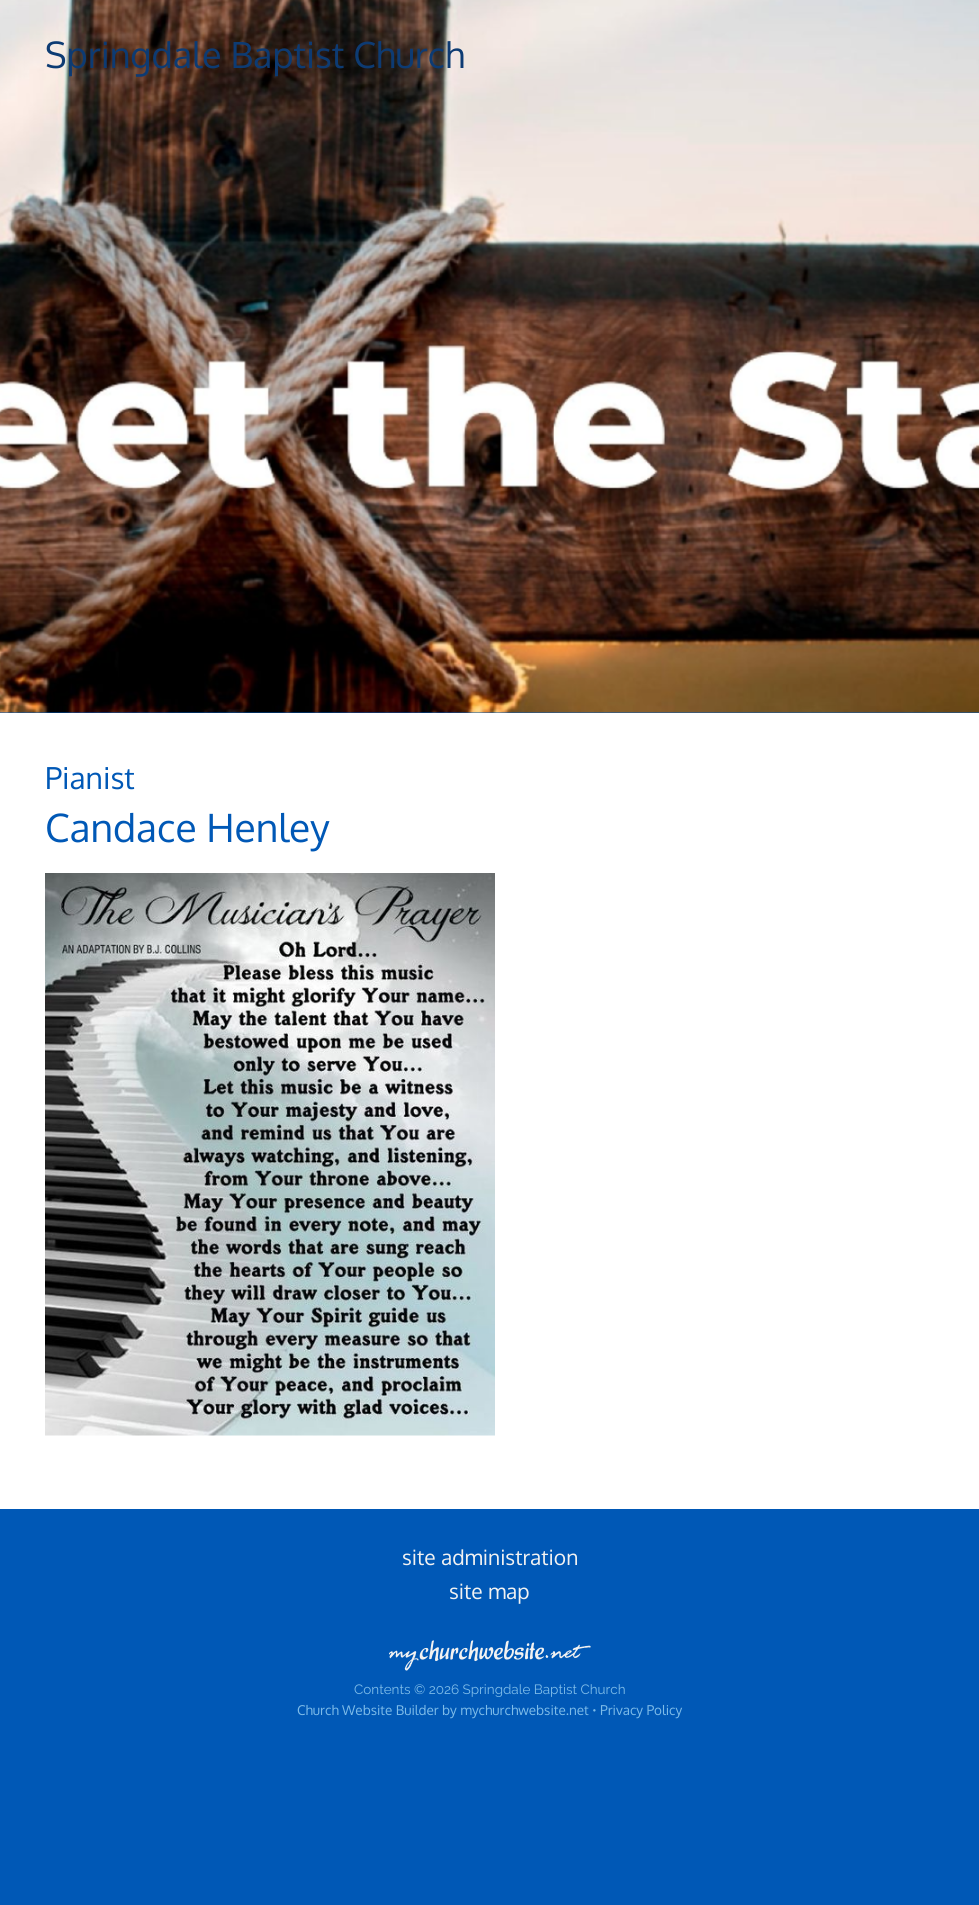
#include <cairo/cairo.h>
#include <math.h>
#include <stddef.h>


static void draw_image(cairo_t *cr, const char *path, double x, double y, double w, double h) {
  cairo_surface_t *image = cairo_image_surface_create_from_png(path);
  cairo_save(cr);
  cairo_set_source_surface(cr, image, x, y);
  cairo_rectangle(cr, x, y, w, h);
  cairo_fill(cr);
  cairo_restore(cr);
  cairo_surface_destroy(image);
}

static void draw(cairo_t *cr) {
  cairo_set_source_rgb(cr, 0, 88 / 255.0, 182 / 255.0);
  cairo_paint(cr);
  draw_image(cr, "images/1.png", 0, 0, 979, 713);
  cairo_set_source_rgb(cr, 1, 1, 1);
  cairo_rectangle(cr, 0, 713, 979, 796);
  cairo_fill(cr);
  draw_image(cr, "images/2.png", 45, 873, 450, 563);
  draw_image(cr, "images/3.png", 389, 1640, 202, 31);
  cairo_select_font_face(cr, "Oxygen", CAIRO_FONT_SLANT_NORMAL, CAIRO_FONT_WEIGHT_NORMAL);
  cairo_set_font_size(cr, 36);
  cairo_set_source_rgb(cr, 13 / 255.0, 59 / 255.0, 115 / 255.0);
  cairo_move_to(cr, 45, 68);
  cairo_show_text(cr, "Springdale Baptist Church");
  cairo_set_font_size(cr, 30);
  cairo_set_source_rgb(cr, 0, 88 / 255.0, 182 / 255.0);
  cairo_move_to(cr, 45, 789);
  cairo_show_text(cr, "Pianist");
  cairo_set_font_size(cr, 39);
  cairo_move_to(cr, 45, 842);
  cairo_show_text(cr, "Candace Henley");
  cairo_set_font_size(cr, 21);
  cairo_set_source_rgb(cr, 242 / 255.0, 242 / 255.0, 242 / 255.0);
  cairo_move_to(cr, 402, 1565);
  cairo_show_text(cr, "site administration");
  cairo_move_to(cr, 449, 1599);
  cairo_show_text(cr, "site map");
  cairo_select_font_face(cr, "Raleway", CAIRO_FONT_SLANT_NORMAL, CAIRO_FONT_WEIGHT_NORMAL);
  cairo_set_font_size(cr, 13.5);
  cairo_set_source_rgb(cr, 126 / 255.0, 188 / 255.0, 233 / 255.0);
  cairo_move_to(cr, 354, 1694);
  cairo_show_text(cr, "Contents © 2026 Springdale Baptist Church");
  cairo_select_font_face(cr, "Oxygen", CAIRO_FONT_SLANT_NORMAL, CAIRO_FONT_WEIGHT_NORMAL);
  cairo_move_to(cr, 297, 1715);
  cairo_show_text(cr, "Church Website Builder by mychurchwebsite.net");
  cairo_select_font_face(cr, "Raleway", CAIRO_FONT_SLANT_NORMAL, CAIRO_FONT_WEIGHT_NORMAL);
  cairo_move_to(cr, 592, 1715);
  cairo_show_text(cr, "•");
  cairo_select_font_face(cr, "Oxygen", CAIRO_FONT_SLANT_NORMAL, CAIRO_FONT_WEIGHT_NORMAL);
  cairo_move_to(cr, 600, 1715);
  cairo_show_text(cr, "Privacy Policy");
}

int main(void) {
  cairo_surface_t *surface = cairo_image_surface_create(CAIRO_FORMAT_RGB24, 979, 1905);
  cairo_t *cr = cairo_create(surface);
  cairo_font_options_t *options = cairo_font_options_create();
  cairo_font_options_set_hint_metrics(options, CAIRO_HINT_METRICS_OFF);
  cairo_font_options_set_hint_style(options, CAIRO_HINT_STYLE_NONE);
  cairo_set_font_options(cr, options);
  cairo_set_miter_limit(cr, 4);
  draw(cr);
  cairo_surface_write_to_png(surface, "out.png");
  cairo_font_options_destroy(options);
  cairo_destroy(cr);
  cairo_surface_destroy(surface);
  return 0;
}
